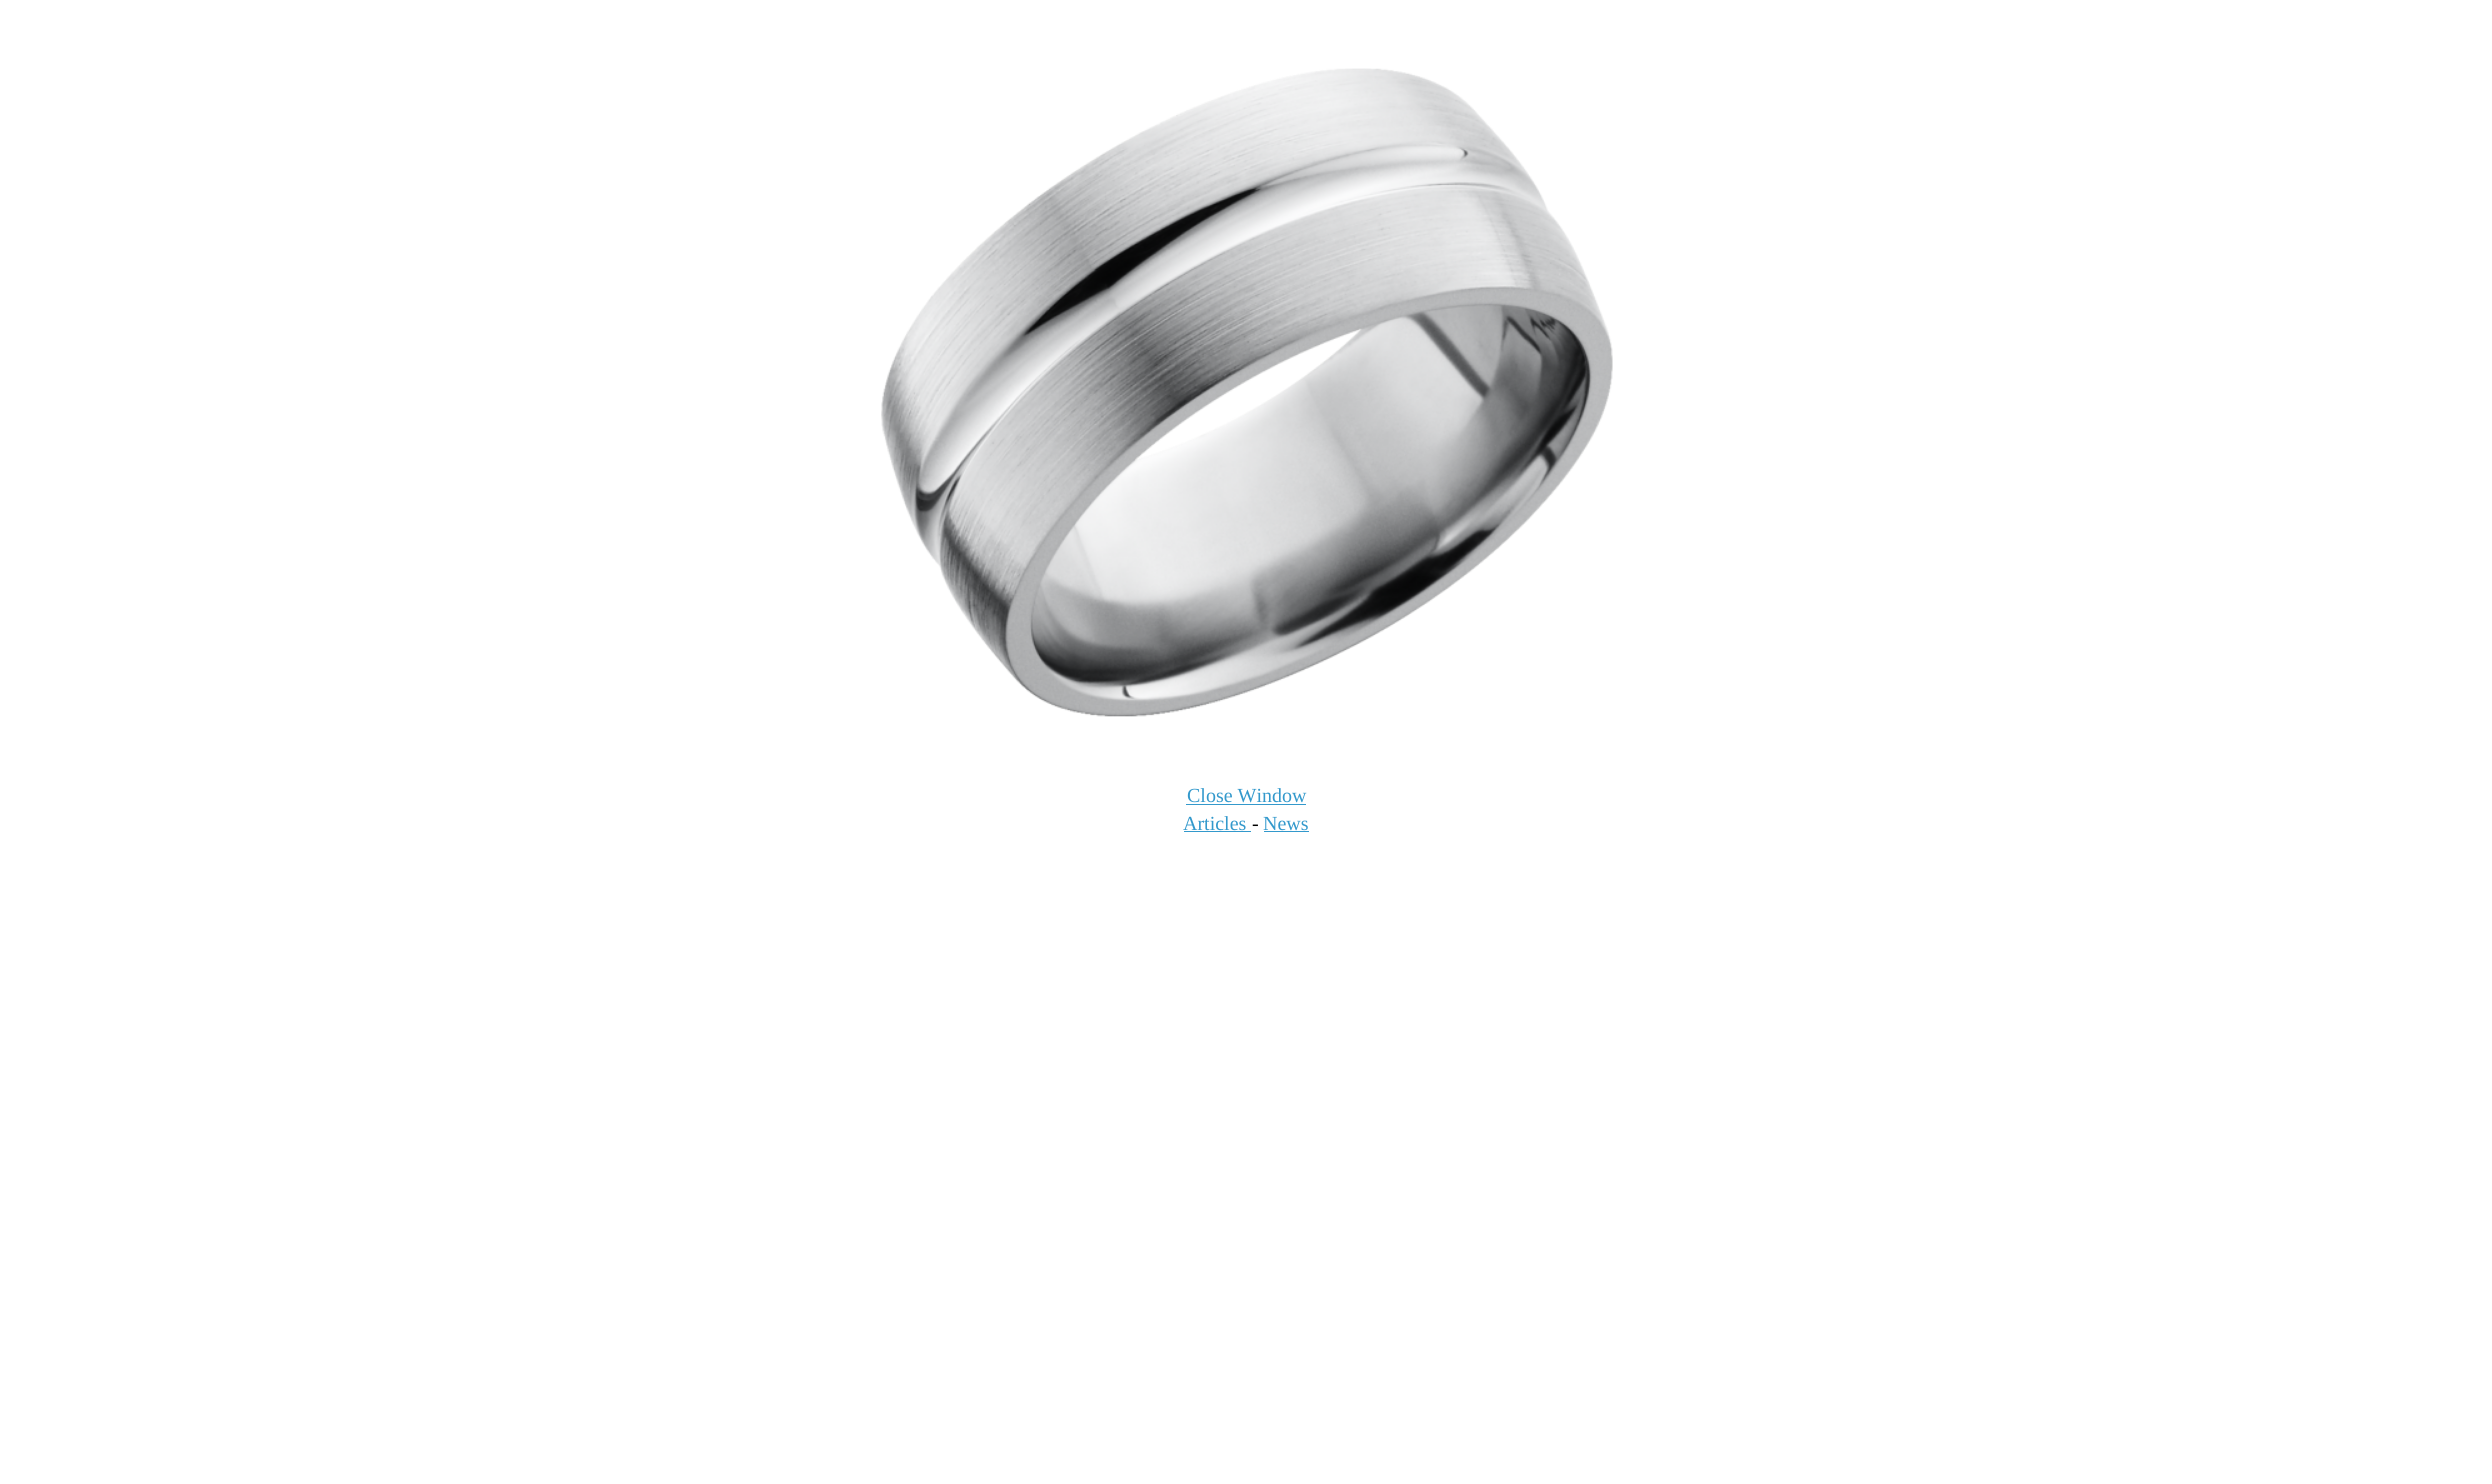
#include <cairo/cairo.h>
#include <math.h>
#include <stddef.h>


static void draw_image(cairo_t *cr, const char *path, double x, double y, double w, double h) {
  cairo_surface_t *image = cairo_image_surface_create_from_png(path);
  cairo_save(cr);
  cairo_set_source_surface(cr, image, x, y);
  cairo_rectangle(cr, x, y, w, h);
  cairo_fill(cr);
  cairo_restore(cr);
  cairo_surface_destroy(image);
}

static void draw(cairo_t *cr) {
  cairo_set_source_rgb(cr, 1, 1, 1);
  cairo_paint(cr);
  draw_image(cr, "images/1.png", 881, 68, 732, 649);
  cairo_set_source_rgb(cr, 51 / 255.0, 153 / 255.0, 204 / 255.0);
  cairo_rectangle(cr, 1186, 804, 120, 1);
  cairo_fill(cr);
  cairo_rectangle(cr, 1184, 831, 67, 1);
  cairo_fill(cr);
  cairo_rectangle(cr, 1264, 831, 45, 1);
  cairo_fill(cr);
  cairo_select_font_face(cr, "Liberation Serif", CAIRO_FONT_SLANT_NORMAL, CAIRO_FONT_WEIGHT_NORMAL);
  cairo_set_font_size(cr, 20);
  cairo_move_to(cr, 1187, 802);
  cairo_show_text(cr, "Close Window");
  cairo_move_to(cr, 1183, 830);
  cairo_show_text(cr, "Articles");
  cairo_set_source_rgb(cr, 0, 0, 0);
  cairo_move_to(cr, 1252, 830);
  cairo_show_text(cr, "-");
  cairo_set_source_rgb(cr, 51 / 255.0, 153 / 255.0, 204 / 255.0);
  cairo_move_to(cr, 1263, 830);
  cairo_show_text(cr, "News");
}

int main(void) {
  cairo_surface_t *surface = cairo_image_surface_create(CAIRO_FORMAT_RGB24, 2492, 1484);
  cairo_t *cr = cairo_create(surface);
  cairo_font_options_t *options = cairo_font_options_create();
  cairo_font_options_set_hint_metrics(options, CAIRO_HINT_METRICS_OFF);
  cairo_font_options_set_hint_style(options, CAIRO_HINT_STYLE_NONE);
  cairo_set_font_options(cr, options);
  cairo_set_miter_limit(cr, 4);
  draw(cr);
  cairo_surface_write_to_png(surface, "out.png");
  cairo_font_options_destroy(options);
  cairo_destroy(cr);
  cairo_surface_destroy(surface);
  return 0;
}
